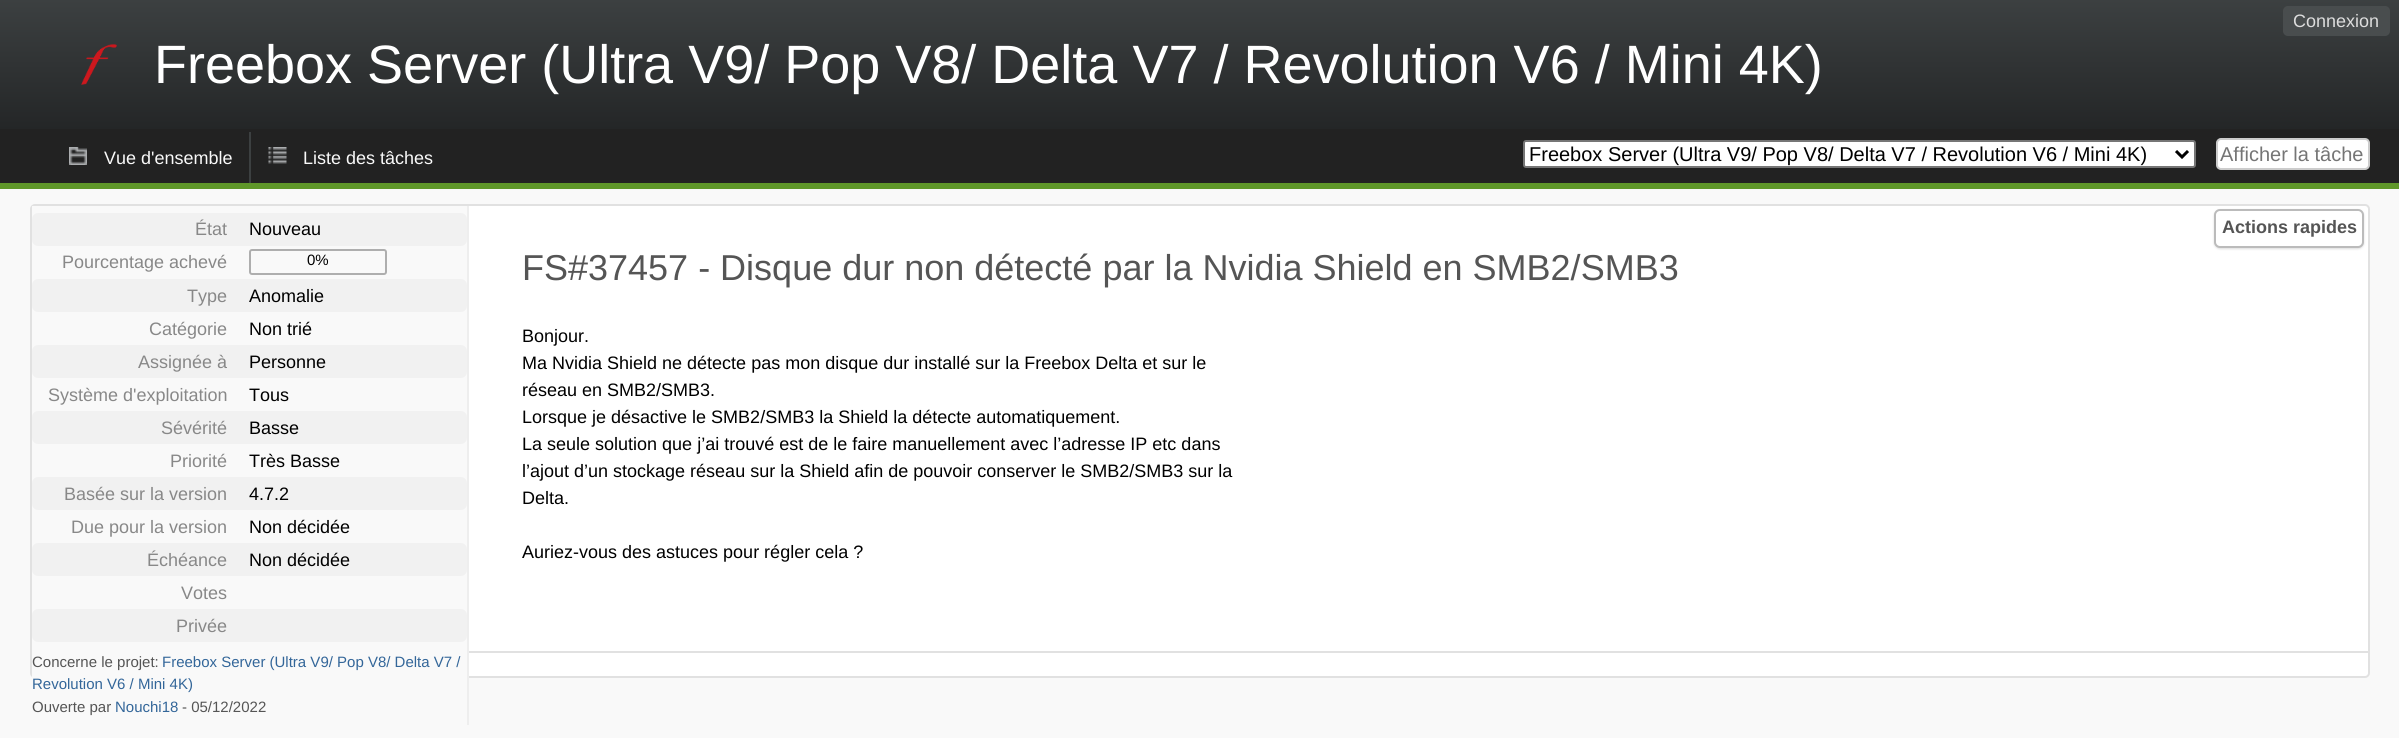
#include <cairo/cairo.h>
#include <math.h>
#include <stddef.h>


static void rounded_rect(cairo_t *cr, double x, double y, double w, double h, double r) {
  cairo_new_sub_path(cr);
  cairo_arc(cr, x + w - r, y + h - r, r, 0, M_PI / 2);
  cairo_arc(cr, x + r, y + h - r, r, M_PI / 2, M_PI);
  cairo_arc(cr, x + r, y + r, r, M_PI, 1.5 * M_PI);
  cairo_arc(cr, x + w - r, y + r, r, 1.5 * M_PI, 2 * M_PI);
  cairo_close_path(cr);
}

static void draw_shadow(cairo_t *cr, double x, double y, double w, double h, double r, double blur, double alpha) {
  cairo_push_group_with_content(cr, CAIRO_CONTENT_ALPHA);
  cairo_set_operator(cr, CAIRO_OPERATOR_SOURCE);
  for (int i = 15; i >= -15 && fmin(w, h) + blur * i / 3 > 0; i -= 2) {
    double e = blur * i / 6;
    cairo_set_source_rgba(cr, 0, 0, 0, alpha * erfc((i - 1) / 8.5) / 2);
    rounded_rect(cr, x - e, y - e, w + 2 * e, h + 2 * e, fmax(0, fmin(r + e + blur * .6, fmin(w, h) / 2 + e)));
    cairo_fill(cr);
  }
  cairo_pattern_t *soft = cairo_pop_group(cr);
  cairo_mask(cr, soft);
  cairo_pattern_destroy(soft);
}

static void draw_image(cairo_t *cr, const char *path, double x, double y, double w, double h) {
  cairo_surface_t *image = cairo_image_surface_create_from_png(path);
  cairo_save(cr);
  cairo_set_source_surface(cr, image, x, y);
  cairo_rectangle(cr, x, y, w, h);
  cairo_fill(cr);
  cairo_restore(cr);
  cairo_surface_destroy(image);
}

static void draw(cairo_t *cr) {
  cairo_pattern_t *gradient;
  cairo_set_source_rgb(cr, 249 / 255.0, 249 / 255.0, 249 / 255.0);
  cairo_paint(cr);
  gradient = cairo_pattern_create_linear(1200, 0, 1200, 129);
  cairo_pattern_add_color_stop_rgba(gradient, 0, 60 / 255.0, 64 / 255.0, 65 / 255.0, 1);
  cairo_pattern_add_color_stop_rgba(gradient, 1, 36 / 255.0, 38 / 255.0, 39 / 255.0, 1);
  cairo_set_source(cr, gradient);
  cairo_pattern_destroy(gradient);
  cairo_rectangle(cr, 0, 0, 2399, 129);
  cairo_fill(cr);
  cairo_set_source_rgb(cr, 73 / 255.0, 77 / 255.0, 78 / 255.0);
  rounded_rect(cr, 2283, 6, 107, 30, 5);
  cairo_fill(cr);
  draw_image(cr, "images/1.png", 81, 44, 36, 41);
  cairo_set_source_rgb(cr, 34 / 255.0, 34 / 255.0, 34 / 255.0);
  cairo_rectangle(cr, 0, 129, 2399, 54);
  cairo_fill(cr);
  cairo_set_source_rgb(cr, 95 / 255.0, 151 / 255.0, 41 / 255.0);
  cairo_rectangle(cr, 0, 183, 2399, 6);
  cairo_fill(cr);
  draw_image(cr, "images/2.png", 69, 147, 18, 18);
  draw_image(cr, "images/3.png", 268, 147, 19, 17);
  cairo_set_source_rgb(cr, 60 / 255.0, 64 / 255.0, 65 / 255.0);
  cairo_rectangle(cr, 249, 132, 2, 51);
  cairo_fill(cr);
  cairo_set_source_rgb(cr, 1, 1, 1);
  rounded_rect(cr, 1524, 141, 671, 26, 2);
  cairo_fill_preserve(cr);
  cairo_set_source_rgb(cr, 118 / 255.0, 118 / 255.0, 118 / 255.0);
  cairo_stroke(cr);
  cairo_new_path(cr);
  cairo_move_to(cr, 2176, 151);
  cairo_line_to(cr, 2182, 157);
  cairo_line_to(cr, 2188, 151);
  cairo_set_source_rgb(cr, 0, 0, 0);
  cairo_set_line_width(cr, 3);
  cairo_stroke(cr);
  cairo_set_source_rgb(cr, 1, 1, 1);
  rounded_rect(cr, 2217, 139, 152, 30, 4);
  cairo_fill_preserve(cr);
  cairo_set_source_rgb(cr, 204 / 255.0, 204 / 255.0, 204 / 255.0);
  cairo_set_line_width(cr, 2);
  cairo_stroke(cr);
  cairo_set_source_rgb(cr, 1, 1, 1);
  rounded_rect(cr, 31, 205, 2338, 472, 4);
  cairo_fill_preserve(cr);
  cairo_set_source_rgb(cr, 225 / 255.0, 225 / 255.0, 225 / 255.0);
  cairo_stroke(cr);
  cairo_set_source_rgb(cr, 249 / 255.0, 249 / 255.0, 249 / 255.0);
  cairo_rectangle(cr, 32, 206, 435, 472);
  cairo_fill(cr);
  cairo_set_source_rgb(cr, 225 / 255.0, 225 / 255.0, 225 / 255.0);
  cairo_rectangle(cr, 468, 651, 1901, 2);
  cairo_fill(cr);
  cairo_set_source_rgb(cr, 238 / 255.0, 238 / 255.0, 238 / 255.0);
  cairo_rectangle(cr, 467, 206, 2, 519);
  cairo_fill(cr);
  cairo_set_source_rgb(cr, 241 / 255.0, 241 / 255.0, 241 / 255.0);
  rounded_rect(cr, 32, 213, 435, 33, 6);
  cairo_fill(cr);
  rounded_rect(cr, 250, 250, 136, 24, 2);
  cairo_set_source_rgb(cr, 174 / 255.0, 174 / 255.0, 174 / 255.0);
  cairo_stroke(cr);
  cairo_set_source_rgb(cr, 241 / 255.0, 241 / 255.0, 241 / 255.0);
  rounded_rect(cr, 32, 279, 435, 33, 6);
  cairo_fill(cr);
  rounded_rect(cr, 32, 345, 435, 33, 6);
  cairo_fill(cr);
  rounded_rect(cr, 32, 411, 435, 33, 6);
  cairo_fill(cr);
  rounded_rect(cr, 32, 477, 435, 33, 6);
  cairo_fill(cr);
  rounded_rect(cr, 32, 543, 435, 33, 6);
  cairo_fill(cr);
  rounded_rect(cr, 32, 609, 435, 33, 6);
  cairo_fill(cr);
  cairo_set_source_rgb(cr, 221 / 255.0, 221 / 255.0, 221 / 255.0);
  draw_shadow(cr, 2214, 210, 150, 39, 6, 1, 1);
  cairo_set_source_rgb(cr, 1, 1, 1);
  rounded_rect(cr, 2215, 210, 148, 37, 5);
  cairo_fill_preserve(cr);
  cairo_set_source_rgb(cr, 187 / 255.0, 187 / 255.0, 187 / 255.0);
  cairo_stroke(cr);
  cairo_select_font_face(cr, "Liberation Sans", CAIRO_FONT_SLANT_NORMAL, CAIRO_FONT_WEIGHT_NORMAL);
  cairo_set_font_size(cr, 18);
  cairo_set_source_rgb(cr, 221 / 255.0, 221 / 255.0, 221 / 255.0);
  cairo_move_to(cr, 2293, 27);
  cairo_show_text(cr, "Connexion");
  cairo_set_font_size(cr, 54);
  cairo_set_source_rgb(cr, 1, 1, 1);
  cairo_move_to(cr, 154, 83);
  cairo_show_text(cr, "Freebox Server (Ultra V9/ Pop V8/ Delta V7 / Revolution V6 / Mini 4K)");
  cairo_set_font_size(cr, 18);
  cairo_set_source_rgb(cr, 249 / 255.0, 249 / 255.0, 249 / 255.0);
  cairo_move_to(cr, 104, 164);
  cairo_show_text(cr, "Vue d'ensemble");
  cairo_move_to(cr, 303, 164);
  cairo_show_text(cr, "Liste des tâches");
  cairo_set_font_size(cr, 20);
  cairo_set_source_rgb(cr, 0, 0, 0);
  cairo_move_to(cr, 1529, 161);
  cairo_show_text(cr, "Freebox Server (Ultra V9/ Pop V8/ Delta V7 / Revolution V6 / Mini 4K)");
  cairo_set_source_rgb(cr, 117 / 255.0, 117 / 255.0, 117 / 255.0);
  cairo_move_to(cr, 2220, 161);
  cairo_show_text(cr, "Afficher la tâche");
  cairo_set_font_size(cr, 18);
  cairo_set_source_rgb(cr, 136 / 255.0, 136 / 255.0, 136 / 255.0);
  cairo_move_to(cr, 195, 235);
  cairo_show_text(cr, "État");
  cairo_set_source_rgb(cr, 0, 0, 0);
  cairo_move_to(cr, 249, 235);
  cairo_show_text(cr, "Nouveau");
  cairo_set_source_rgb(cr, 136 / 255.0, 136 / 255.0, 136 / 255.0);
  cairo_move_to(cr, 62, 268);
  cairo_show_text(cr, "Pourcentage achevé");
  cairo_set_font_size(cr, 15);
  cairo_set_source_rgb(cr, 0, 0, 0);
  cairo_move_to(cr, 307, 265);
  cairo_show_text(cr, "0%");
  cairo_set_font_size(cr, 18);
  cairo_set_source_rgb(cr, 136 / 255.0, 136 / 255.0, 136 / 255.0);
  cairo_move_to(cr, 187, 302);
  cairo_show_text(cr, "Type");
  cairo_set_source_rgb(cr, 0, 0, 0);
  cairo_move_to(cr, 249, 302);
  cairo_show_text(cr, "Anomalie");
  cairo_set_source_rgb(cr, 136 / 255.0, 136 / 255.0, 136 / 255.0);
  cairo_move_to(cr, 149, 335);
  cairo_show_text(cr, "Catégorie");
  cairo_set_source_rgb(cr, 0, 0, 0);
  cairo_move_to(cr, 249, 335);
  cairo_show_text(cr, "Non trié");
  cairo_set_source_rgb(cr, 136 / 255.0, 136 / 255.0, 136 / 255.0);
  cairo_move_to(cr, 138, 368);
  cairo_show_text(cr, "Assignée à");
  cairo_set_source_rgb(cr, 0, 0, 0);
  cairo_move_to(cr, 249, 368);
  cairo_show_text(cr, "Personne");
  cairo_set_source_rgb(cr, 136 / 255.0, 136 / 255.0, 136 / 255.0);
  cairo_move_to(cr, 48, 401);
  cairo_show_text(cr, "Système d'exploitation");
  cairo_set_source_rgb(cr, 0, 0, 0);
  cairo_move_to(cr, 249, 401);
  cairo_show_text(cr, "Tous");
  cairo_set_source_rgb(cr, 136 / 255.0, 136 / 255.0, 136 / 255.0);
  cairo_move_to(cr, 161, 434);
  cairo_show_text(cr, "Sévérité");
  cairo_set_source_rgb(cr, 0, 0, 0);
  cairo_move_to(cr, 249, 434);
  cairo_show_text(cr, "Basse");
  cairo_set_source_rgb(cr, 136 / 255.0, 136 / 255.0, 136 / 255.0);
  cairo_move_to(cr, 170, 467);
  cairo_show_text(cr, "Priorité");
  cairo_set_source_rgb(cr, 0, 0, 0);
  cairo_move_to(cr, 249, 467);
  cairo_show_text(cr, "Très Basse");
  cairo_set_source_rgb(cr, 136 / 255.0, 136 / 255.0, 136 / 255.0);
  cairo_move_to(cr, 64, 500);
  cairo_show_text(cr, "Basée sur la version");
  cairo_set_source_rgb(cr, 0, 0, 0);
  cairo_move_to(cr, 249, 500);
  cairo_show_text(cr, "4.7.2");
  cairo_set_source_rgb(cr, 136 / 255.0, 136 / 255.0, 136 / 255.0);
  cairo_move_to(cr, 71, 533);
  cairo_show_text(cr, "Due pour la version");
  cairo_set_source_rgb(cr, 0, 0, 0);
  cairo_move_to(cr, 249, 533);
  cairo_show_text(cr, "Non décidée");
  cairo_set_source_rgb(cr, 136 / 255.0, 136 / 255.0, 136 / 255.0);
  cairo_move_to(cr, 147, 566);
  cairo_show_text(cr, "Échéance");
  cairo_set_source_rgb(cr, 0, 0, 0);
  cairo_move_to(cr, 249, 566);
  cairo_show_text(cr, "Non décidée");
  cairo_set_source_rgb(cr, 136 / 255.0, 136 / 255.0, 136 / 255.0);
  cairo_move_to(cr, 181, 599);
  cairo_show_text(cr, "Votes");
  cairo_move_to(cr, 176, 632);
  cairo_show_text(cr, "Privée");
  cairo_set_font_size(cr, 15);
  cairo_set_source_rgb(cr, 85 / 255.0, 85 / 255.0, 85 / 255.0);
  cairo_move_to(cr, 32, 667);
  cairo_show_text(cr, "Concerne le projet:");
  cairo_set_source_rgb(cr, 51 / 255.0, 102 / 255.0, 153 / 255.0);
  cairo_move_to(cr, 162, 667);
  cairo_show_text(cr, "Freebox Server (Ultra V9/ Pop V8/ Delta V7 /");
  cairo_move_to(cr, 32, 689);
  cairo_show_text(cr, "Revolution V6 / Mini 4K)");
  cairo_set_source_rgb(cr, 85 / 255.0, 85 / 255.0, 85 / 255.0);
  cairo_move_to(cr, 32, 712);
  cairo_show_text(cr, "Ouverte par");
  cairo_set_source_rgb(cr, 51 / 255.0, 102 / 255.0, 153 / 255.0);
  cairo_move_to(cr, 115, 712);
  cairo_show_text(cr, "Nouchi18");
  cairo_set_source_rgb(cr, 85 / 255.0, 85 / 255.0, 85 / 255.0);
  cairo_move_to(cr, 182, 712);
  cairo_show_text(cr, "- 05/12/2022");
  cairo_set_font_size(cr, 36);
  cairo_move_to(cr, 522, 280);
  cairo_show_text(cr, "FS#37457 - Disque dur non détecté par la Nvidia Shield en SMB2/SMB3");
  cairo_set_font_size(cr, 18);
  cairo_set_source_rgb(cr, 0, 0, 0);
  cairo_move_to(cr, 522, 342);
  cairo_show_text(cr, "Bonjour.");
  cairo_move_to(cr, 522, 369);
  cairo_show_text(cr, "Ma Nvidia Shield ne détecte pas mon disque dur installé sur la Freebox Delta et sur le");
  cairo_move_to(cr, 522, 396);
  cairo_show_text(cr, "réseau en SMB2/SMB3.");
  cairo_move_to(cr, 522, 423);
  cairo_show_text(cr, "Lorsque je désactive le SMB2/SMB3 la Shield la détecte automatiquement.");
  cairo_move_to(cr, 522, 450);
  cairo_show_text(cr, "La seule solution que j’ai trouvé est de le faire manuellement avec l’adresse IP etc dans");
  cairo_move_to(cr, 522, 477);
  cairo_show_text(cr, "l’ajout d’un stockage réseau sur la Shield afin de pouvoir conserver le SMB2/SMB3 sur la");
  cairo_move_to(cr, 522, 504);
  cairo_show_text(cr, "Delta.");
  cairo_move_to(cr, 522, 558);
  cairo_show_text(cr, "Auriez-vous des astuces pour régler cela ?");
  cairo_select_font_face(cr, "Liberation Sans", CAIRO_FONT_SLANT_NORMAL, CAIRO_FONT_WEIGHT_BOLD);
  cairo_set_source_rgb(cr, 85 / 255.0, 85 / 255.0, 85 / 255.0);
  cairo_move_to(cr, 2222, 233);
  cairo_show_text(cr, "Actions rapides");
}

int main(void) {
  cairo_surface_t *surface = cairo_image_surface_create(CAIRO_FORMAT_RGB24, 2399, 738);
  cairo_t *cr = cairo_create(surface);
  cairo_font_options_t *options = cairo_font_options_create();
  cairo_font_options_set_hint_metrics(options, CAIRO_HINT_METRICS_OFF);
  cairo_font_options_set_hint_style(options, CAIRO_HINT_STYLE_NONE);
  cairo_set_font_options(cr, options);
  cairo_set_miter_limit(cr, 4);
  draw(cr);
  cairo_surface_write_to_png(surface, "out.png");
  cairo_font_options_destroy(options);
  cairo_destroy(cr);
  cairo_surface_destroy(surface);
  return 0;
}
